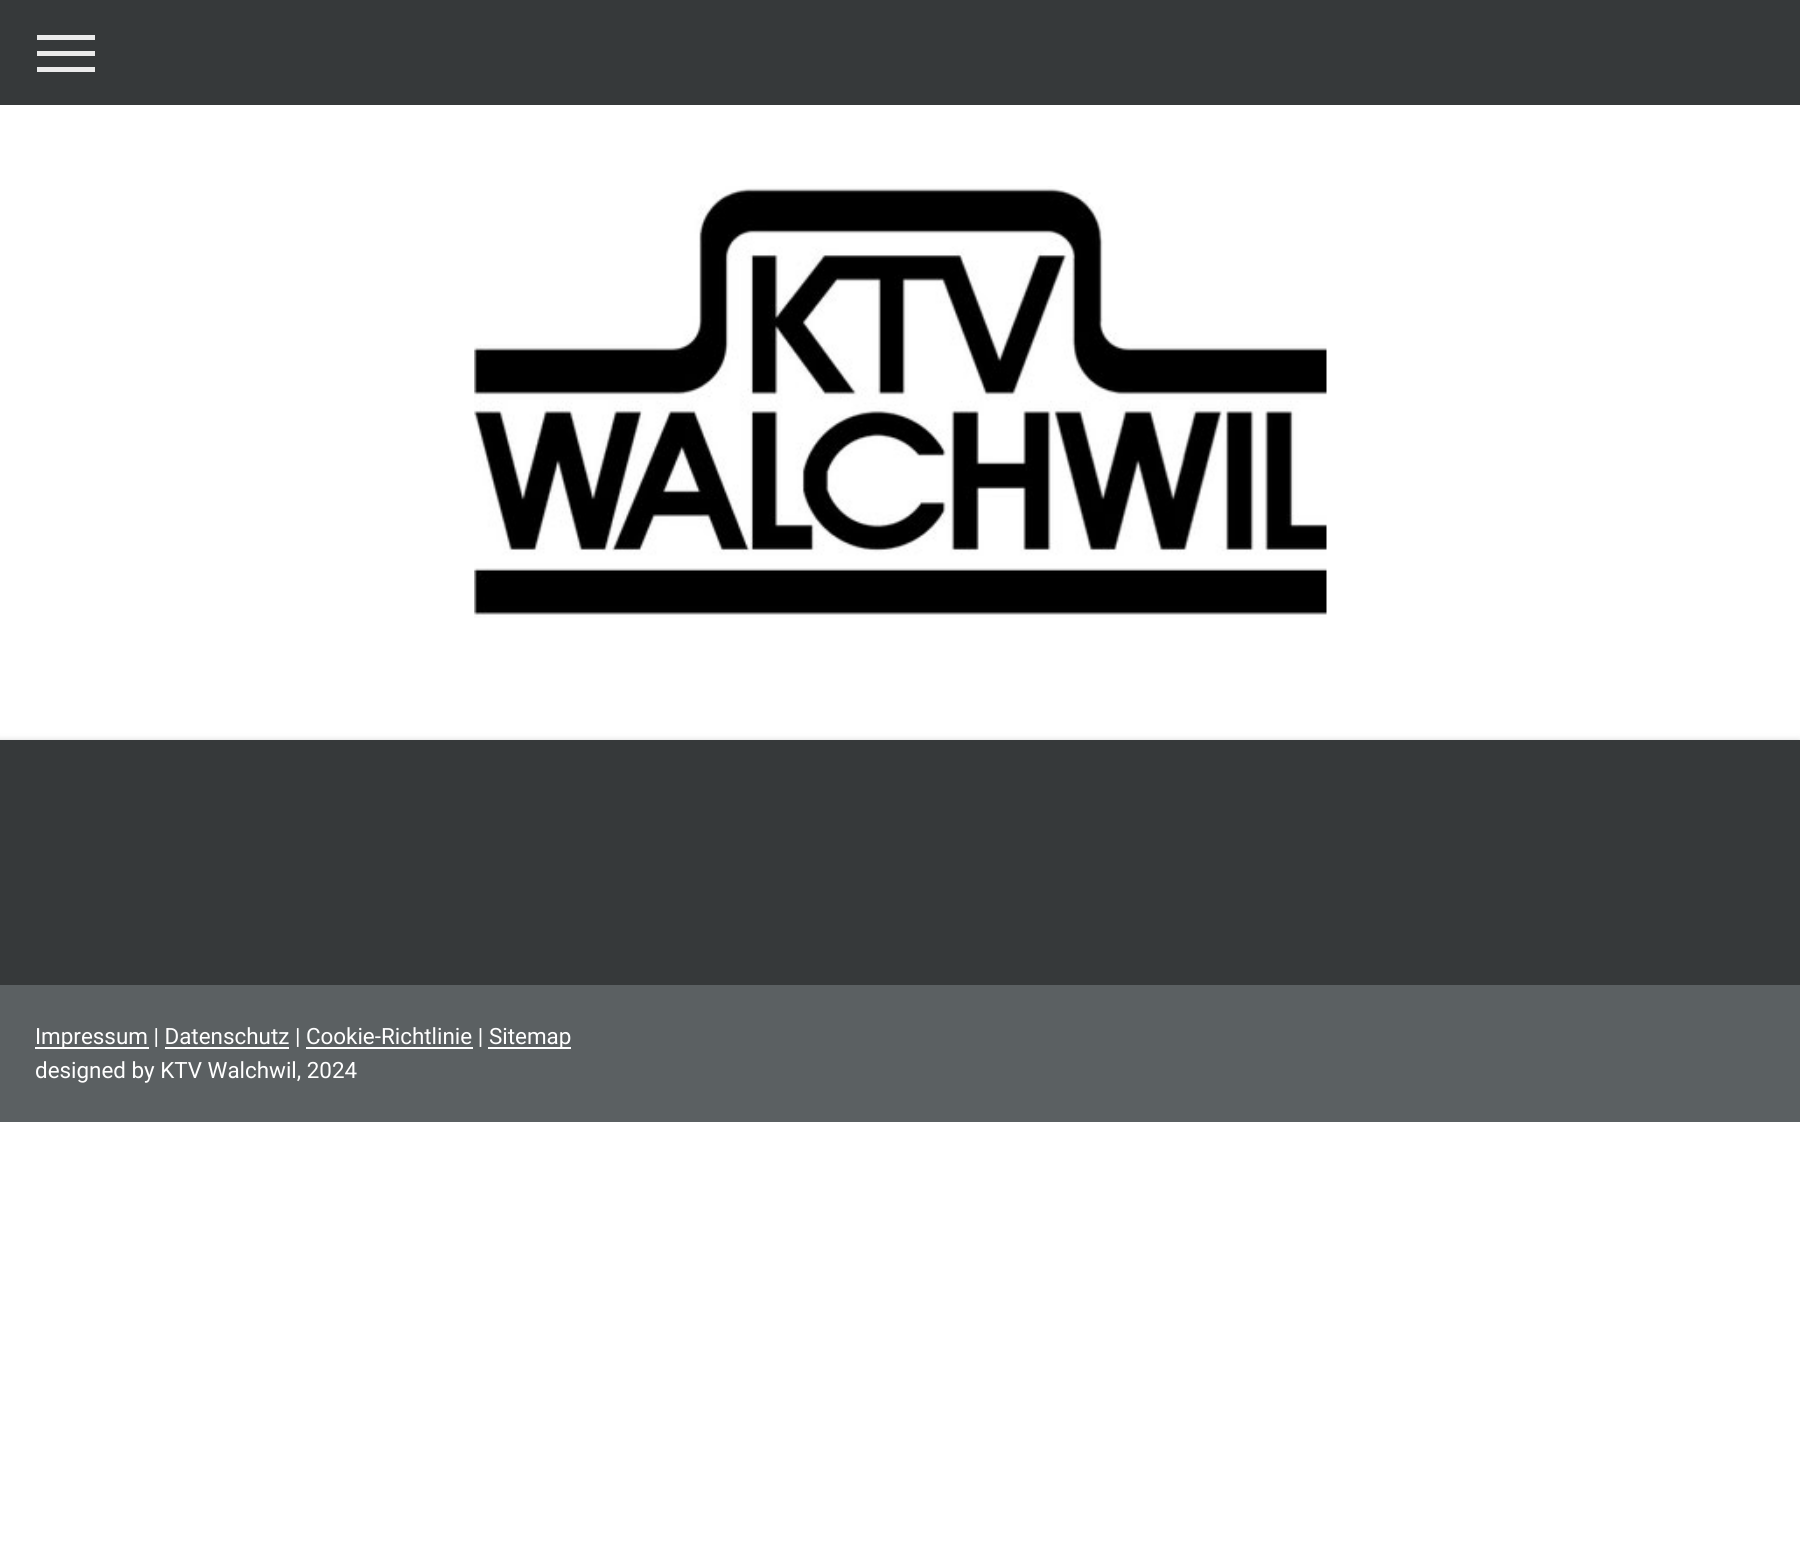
#include <cairo/cairo.h>
#include <math.h>
#include <stddef.h>


static void rounded_rect(cairo_t *cr, double x, double y, double w, double h, double r) {
  cairo_new_sub_path(cr);
  cairo_arc(cr, x + w - r, y + h - r, r, 0, M_PI / 2);
  cairo_arc(cr, x + r, y + h - r, r, M_PI / 2, M_PI);
  cairo_arc(cr, x + r, y + r, r, M_PI, 1.5 * M_PI);
  cairo_arc(cr, x + w - r, y + r, r, 1.5 * M_PI, 2 * M_PI);
  cairo_close_path(cr);
}

static void draw_shadow(cairo_t *cr, double x, double y, double w, double h, double r, double blur, double alpha) {
  cairo_push_group_with_content(cr, CAIRO_CONTENT_ALPHA);
  cairo_set_operator(cr, CAIRO_OPERATOR_SOURCE);
  for (int i = 15; i >= -15 && fmin(w, h) + blur * i / 3 > 0; i -= 2) {
    double e = blur * i / 6;
    cairo_set_source_rgba(cr, 0, 0, 0, alpha * erfc((i - 1) / 8.5) / 2);
    rounded_rect(cr, x - e, y - e, w + 2 * e, h + 2 * e, fmax(0, fmin(r + e + blur * .6, fmin(w, h) / 2 + e)));
    cairo_fill(cr);
  }
  cairo_pattern_t *soft = cairo_pop_group(cr);
  cairo_mask(cr, soft);
  cairo_pattern_destroy(soft);
}

static void draw_image(cairo_t *cr, const char *path, double x, double y, double w, double h) {
  cairo_surface_t *image = cairo_image_surface_create_from_png(path);
  cairo_save(cr);
  cairo_set_source_surface(cr, image, x, y);
  cairo_rectangle(cr, x, y, w, h);
  cairo_fill(cr);
  cairo_restore(cr);
  cairo_surface_destroy(image);
}

static void draw(cairo_t *cr) {
  cairo_set_source_rgb(cr, 1, 1, 1);
  cairo_paint(cr);
  cairo_set_source_rgb(cr, 54 / 255.0, 57 / 255.0, 58 / 255.0);
  cairo_rectangle(cr, 0, 0, 1800, 105);
  cairo_fill(cr);
  cairo_set_source_rgb(cr, 235 / 255.0, 235 / 255.0, 235 / 255.0);
  cairo_rectangle(cr, 37, 51, 58, 5);
  cairo_fill(cr);
  cairo_rectangle(cr, 37, 35, 58, 5);
  cairo_fill(cr);
  cairo_rectangle(cr, 37, 67, 58, 5);
  cairo_fill(cr);
  draw_image(cr, "images/1.png", 474, 186, 853, 432);
  cairo_save(cr);
  cairo_rectangle(cr, 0, 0, 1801, 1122);
  cairo_clip(cr);
  cairo_set_source_rgb(cr, 0, 0, 0);
  draw_shadow(cr, -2, 744, 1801, 381, 0, 4.5, 0.44);
  cairo_restore(cr);
  cairo_set_source_rgb(cr, 54 / 255.0, 57 / 255.0, 58 / 255.0);
  cairo_rectangle(cr, 0, 740, 1800, 245);
  cairo_fill(cr);
  cairo_set_source_rgb(cr, 91 / 255.0, 96 / 255.0, 98 / 255.0);
  cairo_rectangle(cr, 0, 985, 1800, 137);
  cairo_fill(cr);
  cairo_set_source_rgb(cr, 1, 1, 1);
  cairo_rectangle(cr, 35, 1047, 114, 2);
  cairo_fill(cr);
  cairo_rectangle(cr, 488, 1047, 83, 2);
  cairo_fill(cr);
  cairo_rectangle(cr, 165, 1047, 124, 2);
  cairo_fill(cr);
  cairo_rectangle(cr, 306, 1047, 167, 2);
  cairo_fill(cr);
  cairo_select_font_face(cr, "Roboto", CAIRO_FONT_SLANT_NORMAL, CAIRO_FONT_WEIGHT_NORMAL);
  cairo_set_font_size(cr, 22.4);
  cairo_move_to(cr, 35, 1044);
  cairo_show_text(cr, "Impressum | Datenschutz | Cookie-Richtlinie |");
  cairo_move_to(cr, 489, 1044);
  cairo_show_text(cr, "Sitemap");
  cairo_move_to(cr, 35, 1078);
  cairo_show_text(cr, "designed by KTV Walchwil, 2024");
}

int main(void) {
  cairo_surface_t *surface = cairo_image_surface_create(CAIRO_FORMAT_RGB24, 1800, 1551);
  cairo_t *cr = cairo_create(surface);
  cairo_font_options_t *options = cairo_font_options_create();
  cairo_font_options_set_hint_metrics(options, CAIRO_HINT_METRICS_OFF);
  cairo_font_options_set_hint_style(options, CAIRO_HINT_STYLE_NONE);
  cairo_set_font_options(cr, options);
  cairo_set_miter_limit(cr, 4);
  draw(cr);
  cairo_surface_write_to_png(surface, "out.png");
  cairo_font_options_destroy(options);
  cairo_destroy(cr);
  cairo_surface_destroy(surface);
  return 0;
}
